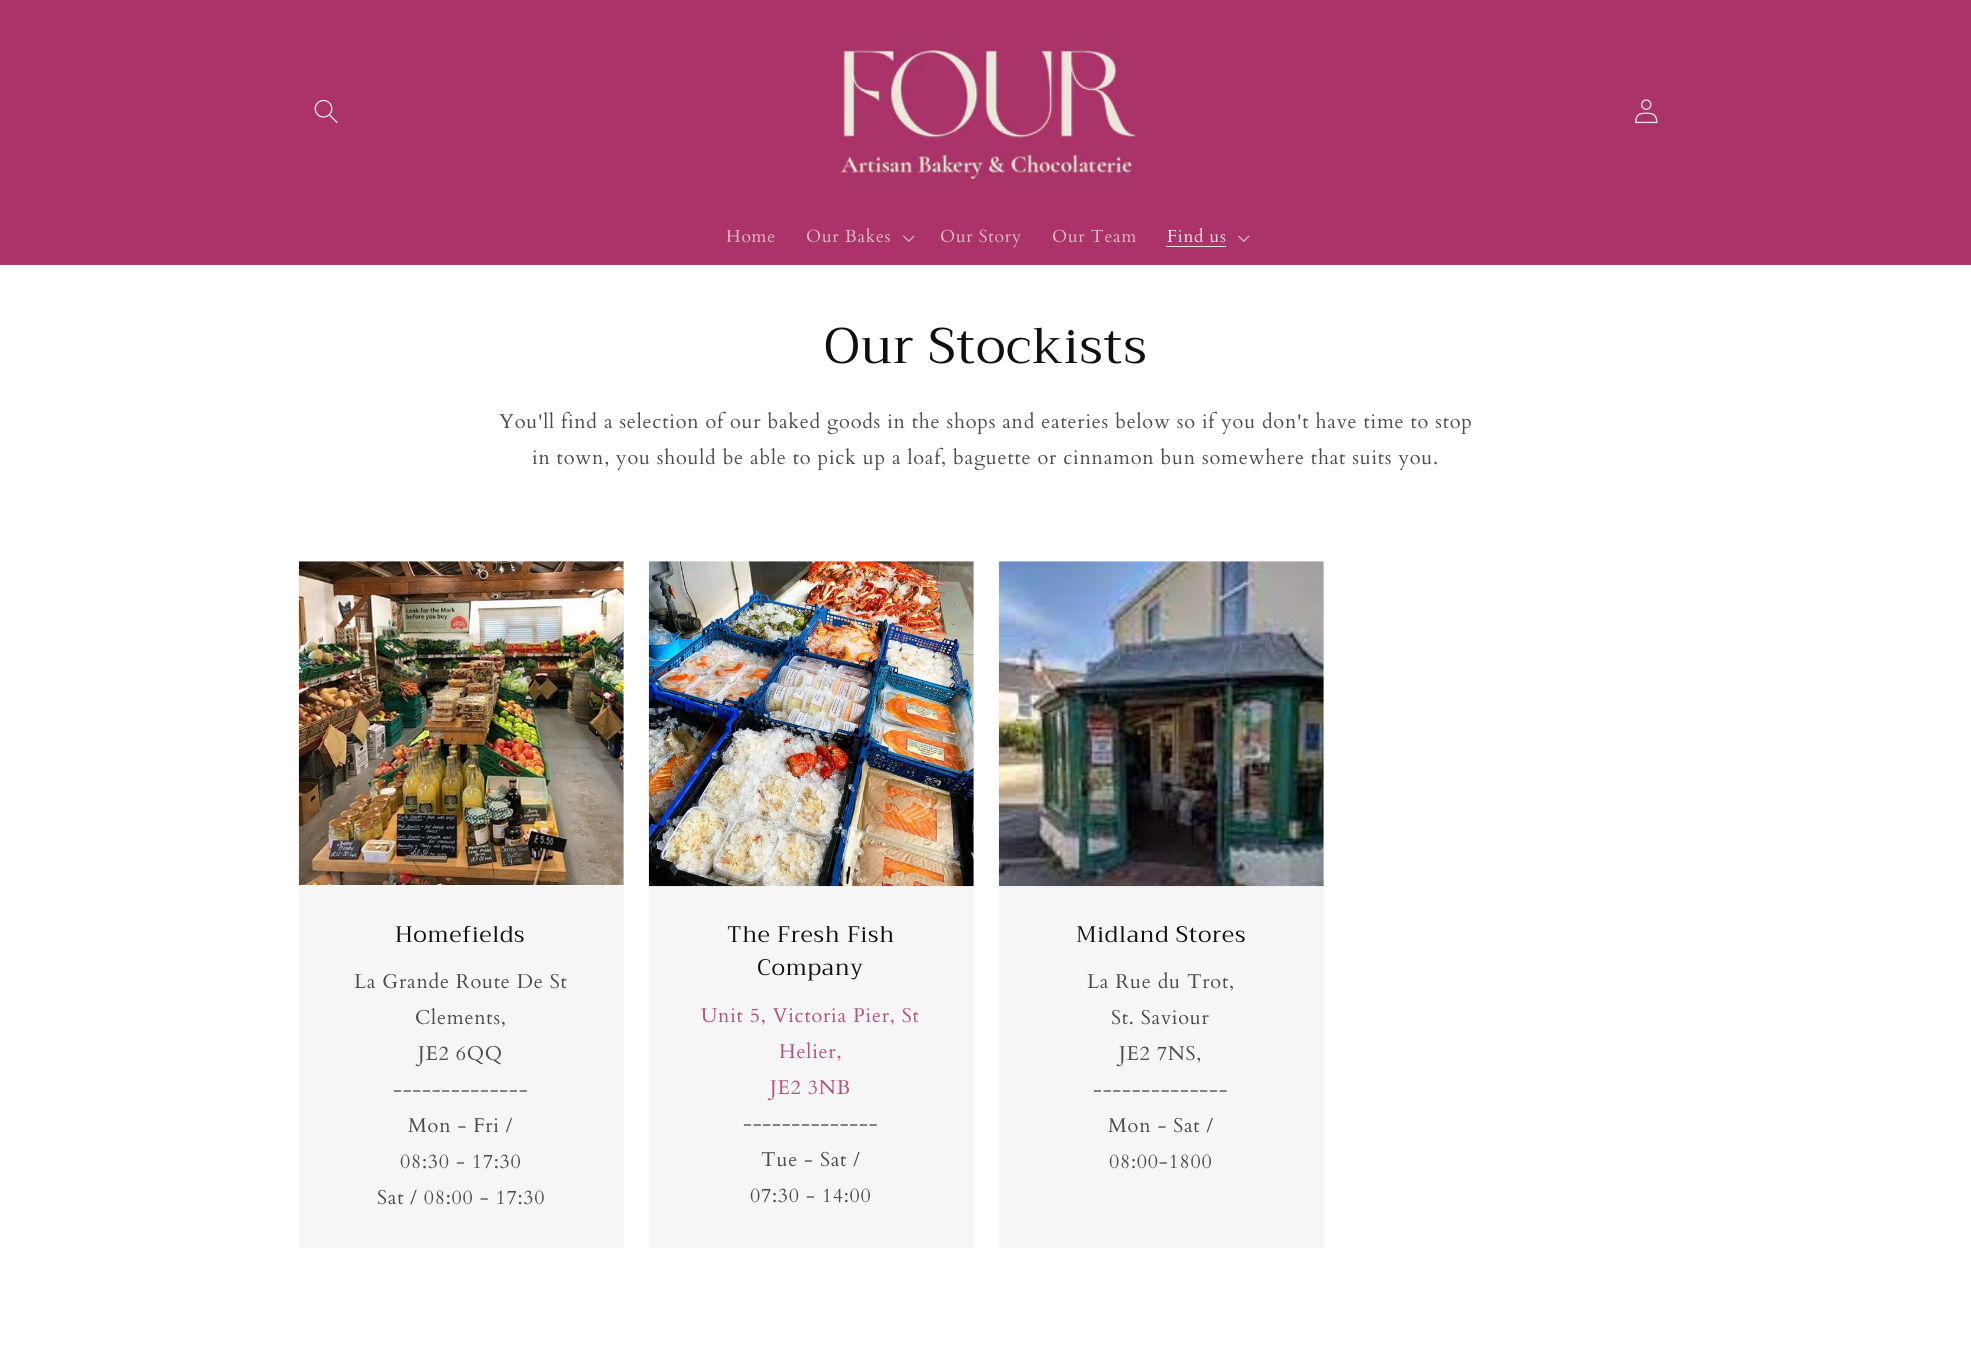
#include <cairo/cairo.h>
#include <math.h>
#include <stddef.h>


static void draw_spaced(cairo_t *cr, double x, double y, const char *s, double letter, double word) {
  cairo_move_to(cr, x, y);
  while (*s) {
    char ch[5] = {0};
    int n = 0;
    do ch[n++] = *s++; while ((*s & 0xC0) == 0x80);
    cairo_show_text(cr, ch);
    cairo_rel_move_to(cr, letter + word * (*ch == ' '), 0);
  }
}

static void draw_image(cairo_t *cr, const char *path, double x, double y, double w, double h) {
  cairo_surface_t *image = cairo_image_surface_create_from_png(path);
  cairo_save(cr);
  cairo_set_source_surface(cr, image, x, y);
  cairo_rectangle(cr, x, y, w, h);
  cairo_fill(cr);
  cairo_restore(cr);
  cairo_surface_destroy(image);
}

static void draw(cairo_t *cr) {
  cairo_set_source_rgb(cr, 1, 1, 1);
  cairo_paint(cr);
  cairo_set_source_rgb(cr, 171 / 255.0, 51 / 255.0, 105 / 255.0);
  cairo_rectangle(cr, 0, 0, 1971, 264);
  cairo_fill(cr);
  cairo_set_source_rgb(cr, 176 / 255.0, 66 / 255.0, 114 / 255.0);
  cairo_rectangle(cr, 0, 264, 1971, 1);
  cairo_fill(cr);
  draw_image(cr, "images/1.png", 314, 99, 24, 24);
  draw_image(cr, "images/2.png", 840, 45, 300, 136);
  draw_image(cr, "images/3.png", 1635, 99, 23, 25);
  draw_image(cr, "images/4.png", 903, 235, 12, 7);
  cairo_set_source_rgb(cr, 237 / 255.0, 233 / 255.0, 221 / 255.0);
  cairo_rectangle(cr, 1166, 246, 60, 1);
  cairo_fill(cr);
  draw_image(cr, "images/4.png", 1238, 235, 12, 7);
  cairo_set_source_rgb(cr, 246 / 255.0, 246 / 255.0, 246 / 255.0);
  cairo_rectangle(cr, 299, 561, 325, 687);
  cairo_fill(cr);
  draw_image(cr, "images/5.png", 298, 561, 326, 325);
  cairo_rectangle(cr, 649, 561, 325, 687);
  cairo_fill(cr);
  draw_image(cr, "images/6.png", 648, 561, 326, 326);
  cairo_rectangle(cr, 999, 561, 325, 687);
  cairo_fill(cr);
  draw_image(cr, "images/7.png", 998, 561, 326, 326);
  cairo_select_font_face(cr, "Cardo", CAIRO_FONT_SLANT_NORMAL, CAIRO_FONT_WEIGHT_NORMAL);
  cairo_set_font_size(cr, 17.5);
  cairo_set_source_rgb(cr, 221 / 255.0, 188 / 255.0, 192 / 255.0);
  draw_spaced(cr, 726, 242, "Home", 0.75, 0);
  draw_spaced(cr, 806, 242, "Our Bakes", 0.75, 0);
  draw_spaced(cr, 940, 242, "Our Story", 0.75, 0);
  draw_spaced(cr, 1052, 242, "Our Team", 0.75, 0);
  cairo_set_source_rgb(cr, 237 / 255.0, 233 / 255.0, 221 / 255.0);
  draw_spaced(cr, 1167, 242, "Find us", 0.75, 0);
  cairo_select_font_face(cr, "Trirong", CAIRO_FONT_SLANT_NORMAL, CAIRO_FONT_WEIGHT_NORMAL);
  cairo_set_font_size(cr, 50);
  cairo_set_source_rgb(cr, 16 / 255.0, 16 / 255.0, 18 / 255.0);
  draw_spaced(cr, 824, 363, "Our Stockists", 0.75, 0);
  cairo_select_font_face(cr, "Cardo", CAIRO_FONT_SLANT_NORMAL, CAIRO_FONT_WEIGHT_NORMAL);
  cairo_set_font_size(cr, 20);
  cairo_set_source_rgb(cr, 76 / 255.0, 76 / 255.0, 77 / 255.0);
  draw_spaced(cr, 499, 428, "You'll find a selection of our baked goods in the shops and eateries below so if you don't have time to stop", 0.75, 0);
  draw_spaced(cr, 532, 464, "in town, you should be able to pick up a loaf, baguette or cinnamon bun somewhere that suits you.", 0.75, 0);
  cairo_select_font_face(cr, "Trirong", CAIRO_FONT_SLANT_NORMAL, CAIRO_FONT_WEIGHT_NORMAL);
  cairo_set_font_size(cr, 22.5);
  cairo_set_source_rgb(cr, 16 / 255.0, 16 / 255.0, 18 / 255.0);
  draw_spaced(cr, 395, 942, "Homefields", 0.75, 0);
  cairo_select_font_face(cr, "Cardo", CAIRO_FONT_SLANT_NORMAL, CAIRO_FONT_WEIGHT_NORMAL);
  cairo_set_font_size(cr, 20);
  cairo_set_source_rgb(cr, 76 / 255.0, 76 / 255.0, 77 / 255.0);
  draw_spaced(cr, 354, 988, "La Grande Route De St", 0.75, 0);
  draw_spaced(cr, 415, 1024, "Clements,", 0.75, 0);
  draw_spaced(cr, 418, 1060, "JE2 6QQ", 0.75, 0);
  draw_spaced(cr, 393, 1096, "--------------", 0.75, 0);
  draw_spaced(cr, 408, 1132, "Mon - Fri /", 0.75, 0);
  draw_spaced(cr, 400, 1168, "08:30 - 17:30", 0.75, 0);
  draw_spaced(cr, 377, 1204, "Sat / 08:00 - 17:30", 0.75, 0);
  cairo_select_font_face(cr, "Trirong", CAIRO_FONT_SLANT_NORMAL, CAIRO_FONT_WEIGHT_NORMAL);
  cairo_set_font_size(cr, 22.5);
  cairo_set_source_rgb(cr, 16 / 255.0, 16 / 255.0, 18 / 255.0);
  draw_spaced(cr, 727, 942, "The Fresh Fish", 0.75, 0);
  draw_spaced(cr, 757, 975, "Company", 0.75, 0);
  cairo_select_font_face(cr, "Cardo", CAIRO_FONT_SLANT_NORMAL, CAIRO_FONT_WEIGHT_NORMAL);
  cairo_set_font_size(cr, 20);
  cairo_set_source_rgb(cr, 182 / 255.0, 80 / 255.0, 126 / 255.0);
  draw_spaced(cr, 701, 1022, "Unit 5, Victoria Pier, St", 0.75, 0);
  draw_spaced(cr, 779, 1058, "Helier,", 0.75, 0);
  draw_spaced(cr, 770, 1094, "JE2 3NB", 0.75, 0);
  cairo_set_source_rgb(cr, 76 / 255.0, 76 / 255.0, 77 / 255.0);
  draw_spaced(cr, 743, 1130, "--------------", 0.75, 0);
  draw_spaced(cr, 761, 1166, "Tue - Sat /", 0.75, 0);
  draw_spaced(cr, 750, 1202, "07:30 - 14:00", 0.75, 0);
  cairo_select_font_face(cr, "Trirong", CAIRO_FONT_SLANT_NORMAL, CAIRO_FONT_WEIGHT_NORMAL);
  cairo_set_font_size(cr, 22.5);
  cairo_set_source_rgb(cr, 16 / 255.0, 16 / 255.0, 18 / 255.0);
  draw_spaced(cr, 1076, 942, "Midland Stores", 0.75, 0);
  cairo_select_font_face(cr, "Cardo", CAIRO_FONT_SLANT_NORMAL, CAIRO_FONT_WEIGHT_NORMAL);
  cairo_set_font_size(cr, 20);
  cairo_set_source_rgb(cr, 76 / 255.0, 76 / 255.0, 77 / 255.0);
  draw_spaced(cr, 1087, 988, "La Rue du Trot,", 0.75, 0);
  draw_spaced(cr, 1111, 1024, "St. Saviour", 0.75, 0);
  draw_spaced(cr, 1119, 1060, "JE2 7NS,", 0.75, 0);
  draw_spaced(cr, 1093, 1096, "--------------", 0.75, 0);
  draw_spaced(cr, 1108, 1132, "Mon - Sat /", 0.75, 0);
  draw_spaced(cr, 1109, 1168, "08:00-1800", 0.75, 0);
}

int main(void) {
  cairo_surface_t *surface = cairo_image_surface_create(CAIRO_FORMAT_RGB24, 1971, 1363);
  cairo_t *cr = cairo_create(surface);
  cairo_font_options_t *options = cairo_font_options_create();
  cairo_font_options_set_hint_metrics(options, CAIRO_HINT_METRICS_OFF);
  cairo_font_options_set_hint_style(options, CAIRO_HINT_STYLE_NONE);
  cairo_set_font_options(cr, options);
  cairo_set_miter_limit(cr, 4);
  draw(cr);
  cairo_surface_write_to_png(surface, "out.png");
  cairo_font_options_destroy(options);
  cairo_destroy(cr);
  cairo_surface_destroy(surface);
  return 0;
}
